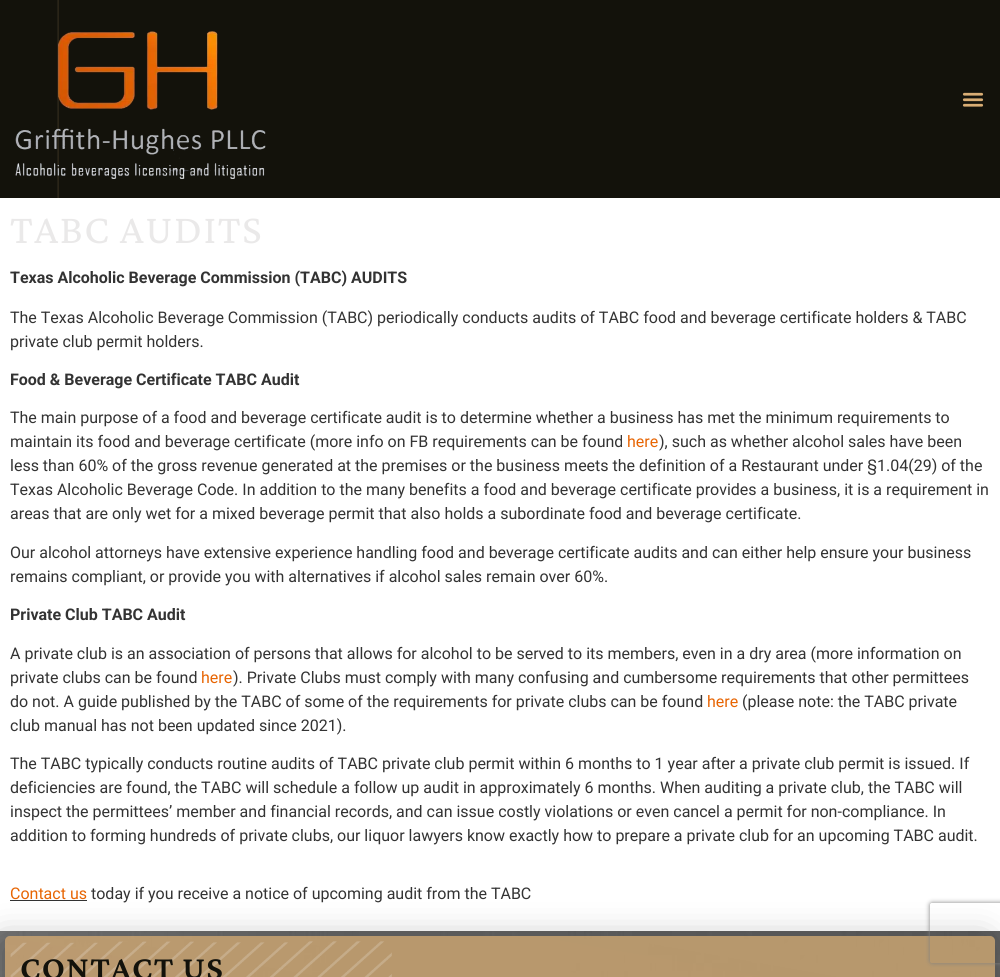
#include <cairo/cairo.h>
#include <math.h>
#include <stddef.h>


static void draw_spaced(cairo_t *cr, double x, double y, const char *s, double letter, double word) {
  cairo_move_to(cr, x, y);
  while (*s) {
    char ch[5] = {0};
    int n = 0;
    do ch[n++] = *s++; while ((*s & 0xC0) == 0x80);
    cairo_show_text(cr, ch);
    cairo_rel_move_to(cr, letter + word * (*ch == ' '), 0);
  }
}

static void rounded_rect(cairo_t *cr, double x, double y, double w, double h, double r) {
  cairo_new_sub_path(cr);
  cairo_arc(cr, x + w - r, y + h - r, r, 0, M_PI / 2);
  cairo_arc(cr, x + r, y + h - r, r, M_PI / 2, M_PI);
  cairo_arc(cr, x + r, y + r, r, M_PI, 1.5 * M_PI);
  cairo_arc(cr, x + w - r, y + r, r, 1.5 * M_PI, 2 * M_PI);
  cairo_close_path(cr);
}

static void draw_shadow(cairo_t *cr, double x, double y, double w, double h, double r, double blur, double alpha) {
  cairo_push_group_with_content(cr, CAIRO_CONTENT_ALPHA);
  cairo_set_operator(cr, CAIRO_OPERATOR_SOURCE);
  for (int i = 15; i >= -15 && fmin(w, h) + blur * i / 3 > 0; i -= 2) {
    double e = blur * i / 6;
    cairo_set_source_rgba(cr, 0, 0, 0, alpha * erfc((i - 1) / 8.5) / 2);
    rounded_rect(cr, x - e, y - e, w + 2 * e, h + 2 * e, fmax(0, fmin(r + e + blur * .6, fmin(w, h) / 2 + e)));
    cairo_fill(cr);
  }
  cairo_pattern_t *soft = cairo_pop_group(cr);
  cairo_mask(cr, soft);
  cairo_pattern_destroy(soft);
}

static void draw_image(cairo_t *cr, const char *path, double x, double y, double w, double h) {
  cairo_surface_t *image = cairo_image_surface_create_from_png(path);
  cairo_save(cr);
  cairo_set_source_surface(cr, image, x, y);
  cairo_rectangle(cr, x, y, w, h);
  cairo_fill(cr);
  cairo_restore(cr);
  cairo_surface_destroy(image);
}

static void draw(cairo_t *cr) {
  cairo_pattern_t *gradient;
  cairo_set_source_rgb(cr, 1, 1, 1);
  cairo_paint(cr);
  cairo_set_source_rgb(cr, 19 / 255.0, 18 / 255.0, 11 / 255.0);
  cairo_rectangle(cr, 0, 0, 1000, 198);
  cairo_fill(cr);
  draw_image(cr, "images/1.png", 57, 0, 2, 198);
  draw_image(cr, "images/2.png", 15, 31, 251, 148);
  draw_image(cr, "images/3.png", 962, 92, 22, 15);
  cairo_set_source_rgb(cr, 51 / 255.0, 51 / 255.0, 51 / 255.0);
  cairo_rectangle(cr, 10, 900, 77, 1);
  cairo_fill(cr);
  draw_image(cr, "images/4.png", 0, 931, 1000, 46);
  cairo_save(cr);
  cairo_set_fill_rule(cr, CAIRO_FILL_RULE_EVEN_ODD);
  cairo_new_path(cr);
  cairo_move_to(cr, 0, 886);
  cairo_line_to(cr, 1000, 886);
  cairo_line_to(cr, 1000, 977);
  cairo_line_to(cr, 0, 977);
  cairo_close_path(cr);
  cairo_move_to(cr, 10, 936);
  cairo_line_to(cr, 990, 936);
  cairo_curve_to(cr, 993, 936, 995, 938, 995, 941);
  cairo_line_to(cr, 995, 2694);
  cairo_curve_to(cr, 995, 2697, 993, 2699, 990, 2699);
  cairo_line_to(cr, 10, 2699);
  cairo_curve_to(cr, 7, 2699, 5, 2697, 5, 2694);
  cairo_line_to(cr, 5, 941);
  cairo_curve_to(cr, 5, 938, 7, 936, 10, 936);
  cairo_close_path(cr);
  cairo_clip(cr);
  cairo_set_source_rgb(cr, 0, 0, 0);
  draw_shadow(cr, -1, 940, 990, 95, 5, 17.5, 0.28);
  cairo_restore(cr);
  gradient = cairo_pattern_create_linear(666, 878, 334, 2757);
  cairo_pattern_add_color_stop_rgba(gradient, 0, 212 / 255.0, 170 / 255.0, 113 / 255.0, 0.75);
  cairo_pattern_add_color_stop_rgba(gradient, 1, 158 / 255.0, 115 / 255.0, 75 / 255.0, 1);
  cairo_set_source(cr, gradient);
  cairo_pattern_destroy(gradient);
  rounded_rect(cr, 5, 936, 990, 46, 5);
  cairo_fill(cr);
  draw_image(cr, "images/5.png", 10, 941, 382, 36);
  cairo_save(cr);
  cairo_set_fill_rule(cr, CAIRO_FILL_RULE_EVEN_ODD);
  cairo_new_path(cr);
  cairo_move_to(cr, 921, 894);
  cairo_line_to(cr, 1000, 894);
  cairo_line_to(cr, 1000, 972);
  cairo_line_to(cr, 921, 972);
  cairo_close_path(cr);
  cairo_move_to(cr, 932, 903);
  cairo_line_to(cr, 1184, 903);
  cairo_curve_to(cr, 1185, 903, 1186, 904, 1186, 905);
  cairo_line_to(cr, 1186, 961);
  cairo_curve_to(cr, 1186, 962, 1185, 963, 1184, 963);
  cairo_line_to(cr, 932, 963);
  cairo_curve_to(cr, 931, 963, 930, 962, 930, 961);
  cairo_line_to(cr, 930, 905);
  cairo_curve_to(cr, 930, 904, 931, 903, 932, 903);
  cairo_close_path(cr);
  cairo_clip(cr);
  cairo_set_source_rgb(cr, 128 / 255.0, 128 / 255.0, 128 / 255.0);
  draw_shadow(cr, 930, 903, 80, 60, 2, 2.5, 1);
  cairo_restore(cr);
  cairo_select_font_face(cr, "Crimson Pro", CAIRO_FONT_SLANT_NORMAL, CAIRO_FONT_WEIGHT_NORMAL);
  cairo_set_font_size(cr, 42);
  cairo_set_source_rgb(cr, 234 / 255.0, 233 / 255.0, 233 / 255.0);
  draw_spaced(cr, 10, 243, "TABC AUDITS", 1.5, 0);
  cairo_select_font_face(cr, "Roboto", CAIRO_FONT_SLANT_NORMAL, CAIRO_FONT_WEIGHT_BOLD);
  cairo_set_font_size(cr, 16);
  cairo_set_source_rgb(cr, 51 / 255.0, 51 / 255.0, 51 / 255.0);
  cairo_move_to(cr, 10, 283);
  cairo_show_text(cr, "Texas Alcoholic Beverage Commission (TABC) AUDITS");
  cairo_select_font_face(cr, "Roboto", CAIRO_FONT_SLANT_NORMAL, CAIRO_FONT_WEIGHT_NORMAL);
  cairo_move_to(cr, 10, 323);
  cairo_show_text(cr, "The Texas Alcoholic Beverage Commission (TABC) periodically conducts audits of TABC food and beverage certificate holders & TABC");
  cairo_move_to(cr, 10, 347);
  cairo_show_text(cr, "private club permit holders.");
  cairo_select_font_face(cr, "Roboto", CAIRO_FONT_SLANT_NORMAL, CAIRO_FONT_WEIGHT_BOLD);
  cairo_move_to(cr, 10, 385);
  cairo_show_text(cr, "Food & Beverage Certificate TABC Audit");
  cairo_select_font_face(cr, "Roboto", CAIRO_FONT_SLANT_NORMAL, CAIRO_FONT_WEIGHT_NORMAL);
  cairo_move_to(cr, 10, 423);
  cairo_show_text(cr, "The main purpose of a food and beverage certificate audit is to determine whether a business has met the minimum requirements to");
  cairo_move_to(cr, 10, 447);
  cairo_show_text(cr, "maintain its food and beverage certificate (more info on FB requirements can be found");
  cairo_set_source_rgb(cr, 231 / 255.0, 101 / 255.0, 3 / 255.0);
  cairo_move_to(cr, 627, 447);
  cairo_show_text(cr, "here");
  cairo_set_source_rgb(cr, 51 / 255.0, 51 / 255.0, 51 / 255.0);
  cairo_move_to(cr, 659, 447);
  cairo_show_text(cr, "), such as whether alcohol sales have been");
  cairo_move_to(cr, 10, 471);
  cairo_show_text(cr, "less than 60% of the gross revenue generated at the premises or the business meets the definition of a Restaurant under §1.04(29) of the");
  cairo_move_to(cr, 10, 495);
  cairo_show_text(cr, "Texas Alcoholic Beverage Code. In addition to the many benefits a food and beverage certificate provides a business, it is a requirement in");
  cairo_move_to(cr, 10, 519);
  cairo_show_text(cr, "areas that are only wet for a mixed beverage permit that also holds a subordinate food and beverage certificate.");
  cairo_move_to(cr, 10, 558);
  cairo_show_text(cr, "Our alcohol attorneys have extensive experience handling food and beverage certificate audits and can either help ensure your business");
  cairo_move_to(cr, 10, 582);
  cairo_show_text(cr, "remains compliant, or provide you with alternatives if alcohol sales remain over 60%.");
  cairo_select_font_face(cr, "Roboto", CAIRO_FONT_SLANT_NORMAL, CAIRO_FONT_WEIGHT_BOLD);
  cairo_move_to(cr, 10, 620);
  cairo_show_text(cr, "Private Club TABC Audit");
  cairo_select_font_face(cr, "Roboto", CAIRO_FONT_SLANT_NORMAL, CAIRO_FONT_WEIGHT_NORMAL);
  cairo_move_to(cr, 10, 659);
  cairo_show_text(cr, "A private club is an association of persons that allows for alcohol to be served to its members, even in a dry area (more information on");
  cairo_move_to(cr, 10, 683);
  cairo_show_text(cr, "private clubs can be found");
  cairo_set_source_rgb(cr, 231 / 255.0, 101 / 255.0, 3 / 255.0);
  cairo_move_to(cr, 201, 683);
  cairo_show_text(cr, "here");
  cairo_set_source_rgb(cr, 51 / 255.0, 51 / 255.0, 51 / 255.0);
  cairo_move_to(cr, 233, 683);
  cairo_show_text(cr, "). Private Clubs must comply with many confusing and cumbersome requirements that other permittees");
  cairo_move_to(cr, 10, 707);
  cairo_show_text(cr, "do not. A guide published by the TABC of some of the requirements for private clubs can be found");
  cairo_set_source_rgb(cr, 231 / 255.0, 101 / 255.0, 3 / 255.0);
  cairo_move_to(cr, 707, 707);
  cairo_show_text(cr, "here");
  cairo_set_source_rgb(cr, 51 / 255.0, 51 / 255.0, 51 / 255.0);
  cairo_move_to(cr, 742, 707);
  cairo_show_text(cr, "(please note: the TABC private");
  cairo_move_to(cr, 10, 731);
  cairo_show_text(cr, "club manual has not been updated since 2021).");
  cairo_move_to(cr, 10, 769);
  cairo_show_text(cr, "The TABC typically conducts routine audits of TABC private club permit within 6 months to 1 year after a private club permit is issued. If");
  cairo_move_to(cr, 10, 793);
  cairo_show_text(cr, "deficiencies are found, the TABC will schedule a follow up audit in approximately 6 months. When auditing a private club, the TABC will");
  cairo_move_to(cr, 10, 817);
  cairo_show_text(cr, "inspect the permittees’ member and financial records, and can issue costly violations or even cancel a permit for non-compliance. In");
  cairo_move_to(cr, 10, 841);
  cairo_show_text(cr, "addition to forming hundreds of private clubs, our liquor lawyers know exactly how to prepare a private club for an upcoming TABC audit.");
  cairo_set_source_rgb(cr, 231 / 255.0, 101 / 255.0, 3 / 255.0);
  cairo_move_to(cr, 10, 899);
  cairo_show_text(cr, "Contact us");
  cairo_set_source_rgb(cr, 51 / 255.0, 51 / 255.0, 51 / 255.0);
  cairo_move_to(cr, 91, 899);
  cairo_show_text(cr, "today if you receive a notice of upcoming audit from the TABC");
  cairo_select_font_face(cr, "Crimson Pro SemiBold", CAIRO_FONT_SLANT_NORMAL, CAIRO_FONT_WEIGHT_NORMAL);
  cairo_set_font_size(cr, 34);
  cairo_set_source_rgb(cr, 19 / 255.0, 18 / 255.0, 11 / 255.0);
  draw_spaced(cr, 20, 979, "CONTACT US", 1.25, 0);
}

int main(void) {
  cairo_surface_t *surface = cairo_image_surface_create(CAIRO_FORMAT_RGB24, 1000, 977);
  cairo_t *cr = cairo_create(surface);
  cairo_font_options_t *options = cairo_font_options_create();
  cairo_font_options_set_hint_metrics(options, CAIRO_HINT_METRICS_OFF);
  cairo_font_options_set_hint_style(options, CAIRO_HINT_STYLE_NONE);
  cairo_set_font_options(cr, options);
  cairo_set_miter_limit(cr, 4);
  draw(cr);
  cairo_surface_write_to_png(surface, "out.png");
  cairo_font_options_destroy(options);
  cairo_destroy(cr);
  cairo_surface_destroy(surface);
  return 0;
}
